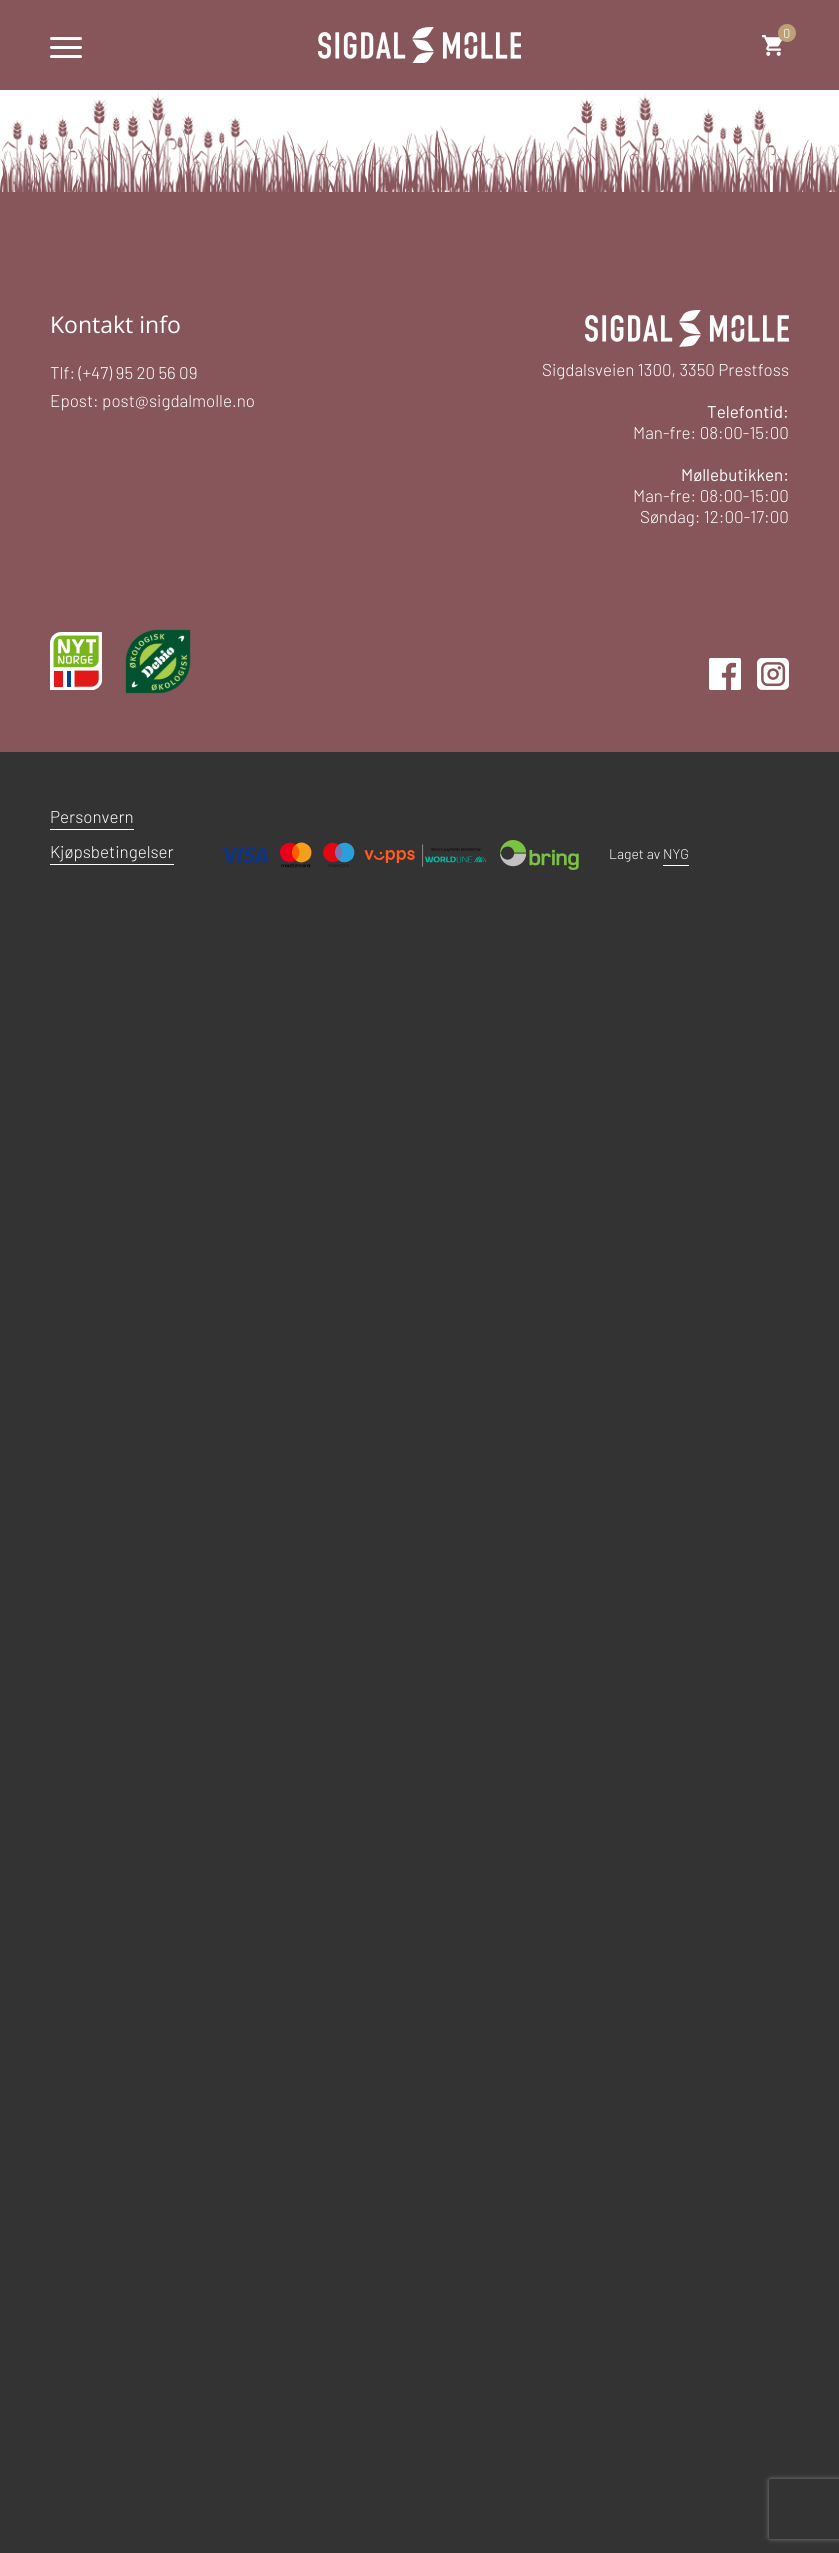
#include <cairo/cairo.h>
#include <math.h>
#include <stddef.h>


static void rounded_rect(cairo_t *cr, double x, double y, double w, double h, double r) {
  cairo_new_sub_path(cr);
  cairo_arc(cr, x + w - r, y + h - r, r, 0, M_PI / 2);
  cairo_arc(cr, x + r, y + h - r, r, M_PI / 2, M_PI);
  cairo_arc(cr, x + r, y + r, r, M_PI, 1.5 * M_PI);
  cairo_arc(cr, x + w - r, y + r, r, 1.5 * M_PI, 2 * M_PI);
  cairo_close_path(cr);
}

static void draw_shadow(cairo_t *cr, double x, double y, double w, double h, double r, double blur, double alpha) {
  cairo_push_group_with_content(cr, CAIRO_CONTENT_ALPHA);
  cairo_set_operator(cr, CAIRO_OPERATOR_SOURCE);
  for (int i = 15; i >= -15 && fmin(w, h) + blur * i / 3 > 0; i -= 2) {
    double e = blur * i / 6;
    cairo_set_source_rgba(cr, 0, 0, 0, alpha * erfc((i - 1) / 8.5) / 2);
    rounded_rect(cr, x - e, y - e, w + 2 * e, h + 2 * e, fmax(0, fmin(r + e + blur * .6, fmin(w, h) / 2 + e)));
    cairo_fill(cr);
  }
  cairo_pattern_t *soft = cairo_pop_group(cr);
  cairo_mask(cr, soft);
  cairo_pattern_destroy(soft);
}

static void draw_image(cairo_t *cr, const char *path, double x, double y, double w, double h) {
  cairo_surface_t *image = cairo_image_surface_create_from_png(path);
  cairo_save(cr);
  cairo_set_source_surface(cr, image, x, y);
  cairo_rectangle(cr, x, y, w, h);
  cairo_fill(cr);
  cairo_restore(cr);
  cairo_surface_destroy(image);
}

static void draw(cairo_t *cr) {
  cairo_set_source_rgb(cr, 51 / 255.0, 51 / 255.0, 51 / 255.0);
  cairo_paint(cr);
  cairo_set_source_rgb(cr, 135 / 255.0, 86 / 255.0, 91 / 255.0);
  cairo_rectangle(cr, 0, 0, 839, 90);
  cairo_fill(cr);
  draw_image(cr, "images/1.png", 318, 27, 203, 36);
  draw_image(cr, "images/2.png", 762, 35, 20, 21);
  cairo_set_source_rgb(cr, 189 / 255.0, 160 / 255.0, 120 / 255.0);
  cairo_arc(cr, 787, 33, 9, 0, 2 * M_PI);
  cairo_fill(cr);
  cairo_set_source_rgb(cr, 1, 1, 1);
  rounded_rect(cr, 50, 46, 32, 3, 1.5);
  cairo_fill(cr);
  rounded_rect(cr, 50, 37, 32, 3, 1.5);
  cairo_fill(cr);
  rounded_rect(cr, 50, 55, 32, 3, 1.5);
  cairo_fill(cr);
  cairo_rectangle(cr, 0, 90, 839, 102);
  cairo_fill(cr);
  cairo_set_source_rgb(cr, 135 / 255.0, 86 / 255.0, 91 / 255.0);
  cairo_rectangle(cr, 0, 192, 839, 560);
  cairo_fill(cr);
  draw_image(cr, "images/3.png", 0, 92, 839, 100);
  draw_image(cr, "images/4.png", 585, 310, 204, 37);
  draw_image(cr, "images/5.png", 50, 632, 52, 58);
  draw_image(cr, "images/6.png", 125, 629, 66, 65);
  draw_image(cr, "images/7.png", 709, 658, 32, 32);
  draw_image(cr, "images/8.png", 757, 658, 32, 32);
  cairo_set_source_rgb(cr, 1, 1, 1);
  cairo_rectangle(cr, 50, 829, 84, 1);
  cairo_fill(cr);
  cairo_rectangle(cr, 50, 864, 124, 1);
  cairo_fill(cr);
  draw_image(cr, "images/9.png", 219, 842, 268, 26);
  draw_image(cr, "images/10.png", 500, 840, 79, 30);
  cairo_rectangle(cr, 663, 865, 26, 1);
  cairo_fill(cr);
  cairo_save(cr);
  cairo_set_fill_rule(cr, CAIRO_FILL_RULE_EVEN_ODD);
  cairo_new_path(cr);
  cairo_move_to(cr, 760, 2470);
  cairo_line_to(cr, 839, 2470);
  cairo_line_to(cr, 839, 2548);
  cairo_line_to(cr, 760, 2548);
  cairo_close_path(cr);
  cairo_move_to(cr, 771, 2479);
  cairo_line_to(cr, 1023, 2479);
  cairo_curve_to(cr, 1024, 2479, 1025, 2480, 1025, 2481);
  cairo_line_to(cr, 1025, 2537);
  cairo_curve_to(cr, 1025, 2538, 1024, 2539, 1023, 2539);
  cairo_line_to(cr, 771, 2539);
  cairo_curve_to(cr, 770, 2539, 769, 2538, 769, 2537);
  cairo_line_to(cr, 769, 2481);
  cairo_curve_to(cr, 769, 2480, 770, 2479, 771, 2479);
  cairo_close_path(cr);
  cairo_clip(cr);
  cairo_set_source_rgb(cr, 128 / 255.0, 128 / 255.0, 128 / 255.0);
  draw_shadow(cr, 769, 2479, 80, 60, 2, 2.5, 1);
  cairo_restore(cr);
  cairo_select_font_face(cr, "Barlow Light", CAIRO_FONT_SLANT_NORMAL, CAIRO_FONT_WEIGHT_NORMAL);
  cairo_set_font_size(cr, 13);
  cairo_move_to(cr, 783, 38);
  cairo_show_text(cr, "0");
  cairo_select_font_face(cr, "Open Sans", CAIRO_FONT_SLANT_NORMAL, CAIRO_FONT_WEIGHT_NORMAL);
  cairo_set_font_size(cr, 23);
  cairo_move_to(cr, 50, 333);
  cairo_show_text(cr, "Kontakt info");
  cairo_select_font_face(cr, "Barlow Light", CAIRO_FONT_SLANT_NORMAL, CAIRO_FONT_WEIGHT_NORMAL);
  cairo_set_font_size(cr, 17);
  cairo_move_to(cr, 50, 379);
  cairo_show_text(cr, "Tlf: (+47) 95 20 56 09");
  cairo_move_to(cr, 50, 407);
  cairo_show_text(cr, "Epost: post@sigdalmolle.no");
  cairo_move_to(cr, 542, 376);
  cairo_show_text(cr, "Sigdalsveien 1300, 3350 Prestfoss");
  cairo_select_font_face(cr, "Barlow", CAIRO_FONT_SLANT_NORMAL, CAIRO_FONT_WEIGHT_NORMAL);
  cairo_move_to(cr, 707, 418);
  cairo_show_text(cr, "Telefontid:");
  cairo_select_font_face(cr, "Barlow Light", CAIRO_FONT_SLANT_NORMAL, CAIRO_FONT_WEIGHT_NORMAL);
  cairo_move_to(cr, 633, 439);
  cairo_show_text(cr, "Man-fre: 08:00-15:00");
  cairo_select_font_face(cr, "Barlow", CAIRO_FONT_SLANT_NORMAL, CAIRO_FONT_WEIGHT_NORMAL);
  cairo_move_to(cr, 681, 481);
  cairo_show_text(cr, "Møllebutikken:");
  cairo_select_font_face(cr, "Barlow Light", CAIRO_FONT_SLANT_NORMAL, CAIRO_FONT_WEIGHT_NORMAL);
  cairo_move_to(cr, 633, 502);
  cairo_show_text(cr, "Man-fre: 08:00-15:00");
  cairo_move_to(cr, 640, 523);
  cairo_show_text(cr, "Søndag: 12:00-17:00");
  cairo_move_to(cr, 50, 823);
  cairo_show_text(cr, "Personvern");
  cairo_move_to(cr, 50, 858);
  cairo_show_text(cr, "Kjøpsbetingelser");
  cairo_set_font_size(cr, 14);
  cairo_move_to(cr, 609, 859);
  cairo_show_text(cr, "Laget av NYG");
}

int main(void) {
  cairo_surface_t *surface = cairo_image_surface_create(CAIRO_FORMAT_RGB24, 839, 2553);
  cairo_t *cr = cairo_create(surface);
  cairo_font_options_t *options = cairo_font_options_create();
  cairo_font_options_set_hint_metrics(options, CAIRO_HINT_METRICS_OFF);
  cairo_font_options_set_hint_style(options, CAIRO_HINT_STYLE_NONE);
  cairo_set_font_options(cr, options);
  cairo_set_miter_limit(cr, 4);
  draw(cr);
  cairo_surface_write_to_png(surface, "out.png");
  cairo_font_options_destroy(options);
  cairo_destroy(cr);
  cairo_surface_destroy(surface);
  return 0;
}
